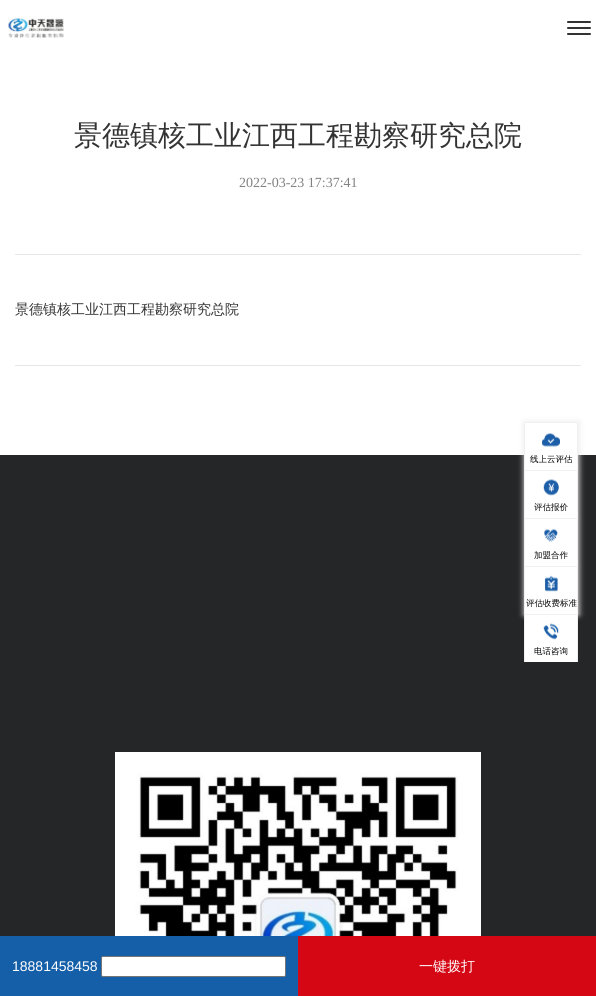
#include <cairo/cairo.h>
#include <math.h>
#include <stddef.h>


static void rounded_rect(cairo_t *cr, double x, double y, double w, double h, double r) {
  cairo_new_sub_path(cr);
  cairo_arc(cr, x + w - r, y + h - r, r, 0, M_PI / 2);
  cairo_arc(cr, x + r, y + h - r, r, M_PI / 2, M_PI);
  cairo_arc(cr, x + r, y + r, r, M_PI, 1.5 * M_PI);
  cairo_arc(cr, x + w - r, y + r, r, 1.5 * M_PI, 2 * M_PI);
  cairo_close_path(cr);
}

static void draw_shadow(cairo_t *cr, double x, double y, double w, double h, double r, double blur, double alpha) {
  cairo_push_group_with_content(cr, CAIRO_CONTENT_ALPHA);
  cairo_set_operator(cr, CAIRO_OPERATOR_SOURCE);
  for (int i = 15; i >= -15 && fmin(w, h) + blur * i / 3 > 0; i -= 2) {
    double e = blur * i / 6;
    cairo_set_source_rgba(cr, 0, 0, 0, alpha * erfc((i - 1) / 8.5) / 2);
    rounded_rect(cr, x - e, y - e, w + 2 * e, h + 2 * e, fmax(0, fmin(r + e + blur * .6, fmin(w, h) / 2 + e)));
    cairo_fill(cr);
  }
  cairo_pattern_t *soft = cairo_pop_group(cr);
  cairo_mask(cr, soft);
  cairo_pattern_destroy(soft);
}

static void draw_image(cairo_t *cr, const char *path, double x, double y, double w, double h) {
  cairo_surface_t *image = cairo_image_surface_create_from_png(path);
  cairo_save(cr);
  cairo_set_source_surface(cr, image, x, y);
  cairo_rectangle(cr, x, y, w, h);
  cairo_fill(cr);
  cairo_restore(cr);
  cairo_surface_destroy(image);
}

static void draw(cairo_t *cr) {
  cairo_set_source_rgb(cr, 1, 1, 1);
  cairo_paint(cr);
  draw_image(cr, "images/1.png", 8, 18, 56, 20);
  cairo_set_source_rgb(cr, 51 / 255.0, 51 / 255.0, 51 / 255.0);
  rounded_rect(cr, 567, 21, 24, 2, 1);
  cairo_fill(cr);
  rounded_rect(cr, 567, 27, 24, 2, 1);
  cairo_fill(cr);
  rounded_rect(cr, 567, 33, 24, 2, 1);
  cairo_fill(cr);
  cairo_set_source_rgb(cr, 230 / 255.0, 230 / 255.0, 230 / 255.0);
  cairo_rectangle(cr, 15, 254, 566, 1);
  cairo_fill(cr);
  cairo_rectangle(cr, 15, 365, 566, 1);
  cairo_fill(cr);
  cairo_set_source_rgb(cr, 36 / 255.0, 38 / 255.0, 40 / 255.0);
  cairo_rectangle(cr, 0, 455, 596, 481);
  cairo_fill(cr);
  cairo_set_source_rgb(cr, 235 / 255.0, 233 / 255.0, 233 / 255.0);
  draw_shadow(cr, 524, 422, 55, 193, 0, 3, 1);
  cairo_set_source_rgb(cr, 1, 1, 1);
  cairo_rectangle(cr, 524, 422, 54, 240);
  cairo_fill(cr);
  cairo_set_source_rgb(cr, 240 / 255.0, 240 / 255.0, 240 / 255.0);
  cairo_new_path(cr);
  cairo_move_to(cr, 524, 422);
  cairo_line_to(cr, 578, 422);
  cairo_line_to(cr, 577, 423);
  cairo_line_to(cr, 525, 423);
  cairo_close_path(cr);
  cairo_fill(cr);
  cairo_set_source_rgba(cr, 239 / 255.0, 239 / 255.0, 239 / 255.0, 0.94);
  cairo_new_path(cr);
  cairo_move_to(cr, 578, 422);
  cairo_line_to(cr, 578, 470);
  cairo_line_to(cr, 577, 470);
  cairo_line_to(cr, 577, 423);
  cairo_close_path(cr);
  cairo_move_to(cr, 524, 470);
  cairo_line_to(cr, 524, 422);
  cairo_line_to(cr, 525, 423);
  cairo_line_to(cr, 525, 470);
  cairo_close_path(cr);
  cairo_fill(cr);
  draw_image(cr, "images/2.png", 542, 433, 18, 14);
  cairo_set_source_rgb(cr, 240 / 255.0, 240 / 255.0, 240 / 255.0);
  cairo_new_path(cr);
  cairo_move_to(cr, 524, 470);
  cairo_line_to(cr, 578, 470);
  cairo_line_to(cr, 577, 471);
  cairo_line_to(cr, 525, 471);
  cairo_close_path(cr);
  cairo_fill(cr);
  cairo_set_source_rgba(cr, 239 / 255.0, 239 / 255.0, 239 / 255.0, 0.94);
  cairo_new_path(cr);
  cairo_move_to(cr, 578, 470);
  cairo_line_to(cr, 578, 518);
  cairo_line_to(cr, 577, 518);
  cairo_line_to(cr, 577, 471);
  cairo_close_path(cr);
  cairo_move_to(cr, 524, 518);
  cairo_line_to(cr, 524, 470);
  cairo_line_to(cr, 525, 471);
  cairo_line_to(cr, 525, 518);
  cairo_close_path(cr);
  cairo_fill(cr);
  draw_image(cr, "images/3.png", 543, 479, 16, 17);
  cairo_set_source_rgb(cr, 240 / 255.0, 240 / 255.0, 240 / 255.0);
  cairo_new_path(cr);
  cairo_move_to(cr, 524, 518);
  cairo_line_to(cr, 578, 518);
  cairo_line_to(cr, 577, 519);
  cairo_line_to(cr, 525, 519);
  cairo_close_path(cr);
  cairo_fill(cr);
  cairo_set_source_rgba(cr, 239 / 255.0, 239 / 255.0, 239 / 255.0, 0.94);
  cairo_new_path(cr);
  cairo_move_to(cr, 578, 518);
  cairo_line_to(cr, 578, 566);
  cairo_line_to(cr, 577, 566);
  cairo_line_to(cr, 577, 519);
  cairo_close_path(cr);
  cairo_move_to(cr, 524, 566);
  cairo_line_to(cr, 524, 518);
  cairo_line_to(cr, 525, 519);
  cairo_line_to(cr, 525, 566);
  cairo_close_path(cr);
  cairo_fill(cr);
  draw_image(cr, "images/4.png", 544, 529, 14, 13);
  cairo_set_source_rgb(cr, 240 / 255.0, 240 / 255.0, 240 / 255.0);
  cairo_new_path(cr);
  cairo_move_to(cr, 524, 566);
  cairo_line_to(cr, 578, 566);
  cairo_line_to(cr, 577, 567);
  cairo_line_to(cr, 525, 567);
  cairo_close_path(cr);
  cairo_fill(cr);
  cairo_set_source_rgba(cr, 239 / 255.0, 239 / 255.0, 239 / 255.0, 0.94);
  cairo_new_path(cr);
  cairo_move_to(cr, 578, 566);
  cairo_line_to(cr, 578, 614);
  cairo_line_to(cr, 577, 614);
  cairo_line_to(cr, 577, 567);
  cairo_close_path(cr);
  cairo_move_to(cr, 524, 614);
  cairo_line_to(cr, 524, 566);
  cairo_line_to(cr, 525, 567);
  cairo_line_to(cr, 525, 614);
  cairo_close_path(cr);
  cairo_fill(cr);
  draw_image(cr, "images/5.png", 545, 575, 13, 17);
  cairo_set_source_rgb(cr, 240 / 255.0, 240 / 255.0, 240 / 255.0);
  cairo_new_path(cr);
  cairo_move_to(cr, 524, 614);
  cairo_line_to(cr, 578, 614);
  cairo_line_to(cr, 577, 615);
  cairo_line_to(cr, 525, 615);
  cairo_close_path(cr);
  cairo_fill(cr);
  cairo_set_source_rgba(cr, 239 / 255.0, 239 / 255.0, 239 / 255.0, 0.94);
  cairo_new_path(cr);
  cairo_move_to(cr, 578, 614);
  cairo_line_to(cr, 578, 662);
  cairo_line_to(cr, 577, 662);
  cairo_line_to(cr, 577, 615);
  cairo_close_path(cr);
  cairo_move_to(cr, 524, 662);
  cairo_line_to(cr, 524, 614);
  cairo_line_to(cr, 525, 615);
  cairo_line_to(cr, 525, 662);
  cairo_close_path(cr);
  cairo_fill(cr);
  draw_image(cr, "images/6.png", 543, 623, 16, 17);
  draw_image(cr, "images/7.png", 115, 752, 366, 184);
  cairo_set_source_rgb(cr, 21 / 255.0, 95 / 255.0, 169 / 255.0);
  cairo_rectangle(cr, 0, 936, 298, 60);
  cairo_fill(cr);
  cairo_set_source_rgb(cr, 1, 1, 1);
  rounded_rect(cr, 101.5, 956.5, 184, 20, 1.5);
  cairo_fill_preserve(cr);
  cairo_set_source_rgb(cr, 118 / 255.0, 118 / 255.0, 118 / 255.0);
  cairo_set_line_width(cr, 1);
  cairo_stroke(cr);
  cairo_set_source_rgb(cr, 213 / 255.0, 7 / 255.0, 21 / 255.0);
  cairo_rectangle(cr, 298, 936, 298, 60);
  cairo_fill(cr);
  cairo_select_font_face(cr, "WenQuanYi Zen Hei Medium", CAIRO_FONT_SLANT_NORMAL, CAIRO_FONT_WEIGHT_NORMAL);
  cairo_set_font_size(cr, 28);
  cairo_set_source_rgb(cr, 51 / 255.0, 51 / 255.0, 51 / 255.0);
  cairo_move_to(cr, 74, 145);
  cairo_show_text(cr, "景德镇核工业江西工程勘察研究总院");
  cairo_select_font_face(cr, "Liberation Serif", CAIRO_FONT_SLANT_NORMAL, CAIRO_FONT_WEIGHT_NORMAL);
  cairo_set_font_size(cr, 14);
  cairo_set_source_rgb(cr, 130 / 255.0, 130 / 255.0, 130 / 255.0);
  cairo_move_to(cr, 239, 187);
  cairo_show_text(cr, "2022-03-23 17:37:41");
  cairo_select_font_face(cr, "WenQuanYi Zen Hei Medium", CAIRO_FONT_SLANT_NORMAL, CAIRO_FONT_WEIGHT_NORMAL);
  cairo_set_source_rgb(cr, 51 / 255.0, 51 / 255.0, 51 / 255.0);
  cairo_move_to(cr, 15, 314);
  cairo_show_text(cr, "景德镇核工业江西工程勘察研究总院");
  cairo_set_font_size(cr, 8.5);
  cairo_set_source_rgb(cr, 0, 0, 0);
  cairo_move_to(cr, 530, 462);
  cairo_show_text(cr, "线上云评估");
  cairo_move_to(cr, 534, 510);
  cairo_show_text(cr, "评估报价");
  cairo_move_to(cr, 534, 558);
  cairo_show_text(cr, "加盟合作");
  cairo_move_to(cr, 526, 606);
  cairo_show_text(cr, "评估收费标准");
  cairo_move_to(cr, 534, 654);
  cairo_show_text(cr, "电话咨询");
  cairo_select_font_face(cr, "Liberation Sans", CAIRO_FONT_SLANT_NORMAL, CAIRO_FONT_WEIGHT_NORMAL);
  cairo_set_font_size(cr, 14);
  cairo_set_source_rgb(cr, 1, 1, 1);
  cairo_move_to(cr, 12, 971);
  cairo_show_text(cr, "18881458458");
  cairo_select_font_face(cr, "WenQuanYi Zen Hei Medium", CAIRO_FONT_SLANT_NORMAL, CAIRO_FONT_WEIGHT_NORMAL);
  cairo_move_to(cr, 419, 971);
  cairo_show_text(cr, "一键拨打");
}

int main(void) {
  cairo_surface_t *surface = cairo_image_surface_create(CAIRO_FORMAT_RGB24, 596, 996);
  cairo_t *cr = cairo_create(surface);
  cairo_font_options_t *options = cairo_font_options_create();
  cairo_font_options_set_hint_metrics(options, CAIRO_HINT_METRICS_OFF);
  cairo_font_options_set_hint_style(options, CAIRO_HINT_STYLE_NONE);
  cairo_set_font_options(cr, options);
  cairo_set_miter_limit(cr, 4);
  draw(cr);
  cairo_surface_write_to_png(surface, "out.png");
  cairo_font_options_destroy(options);
  cairo_destroy(cr);
  cairo_surface_destroy(surface);
  return 0;
}
